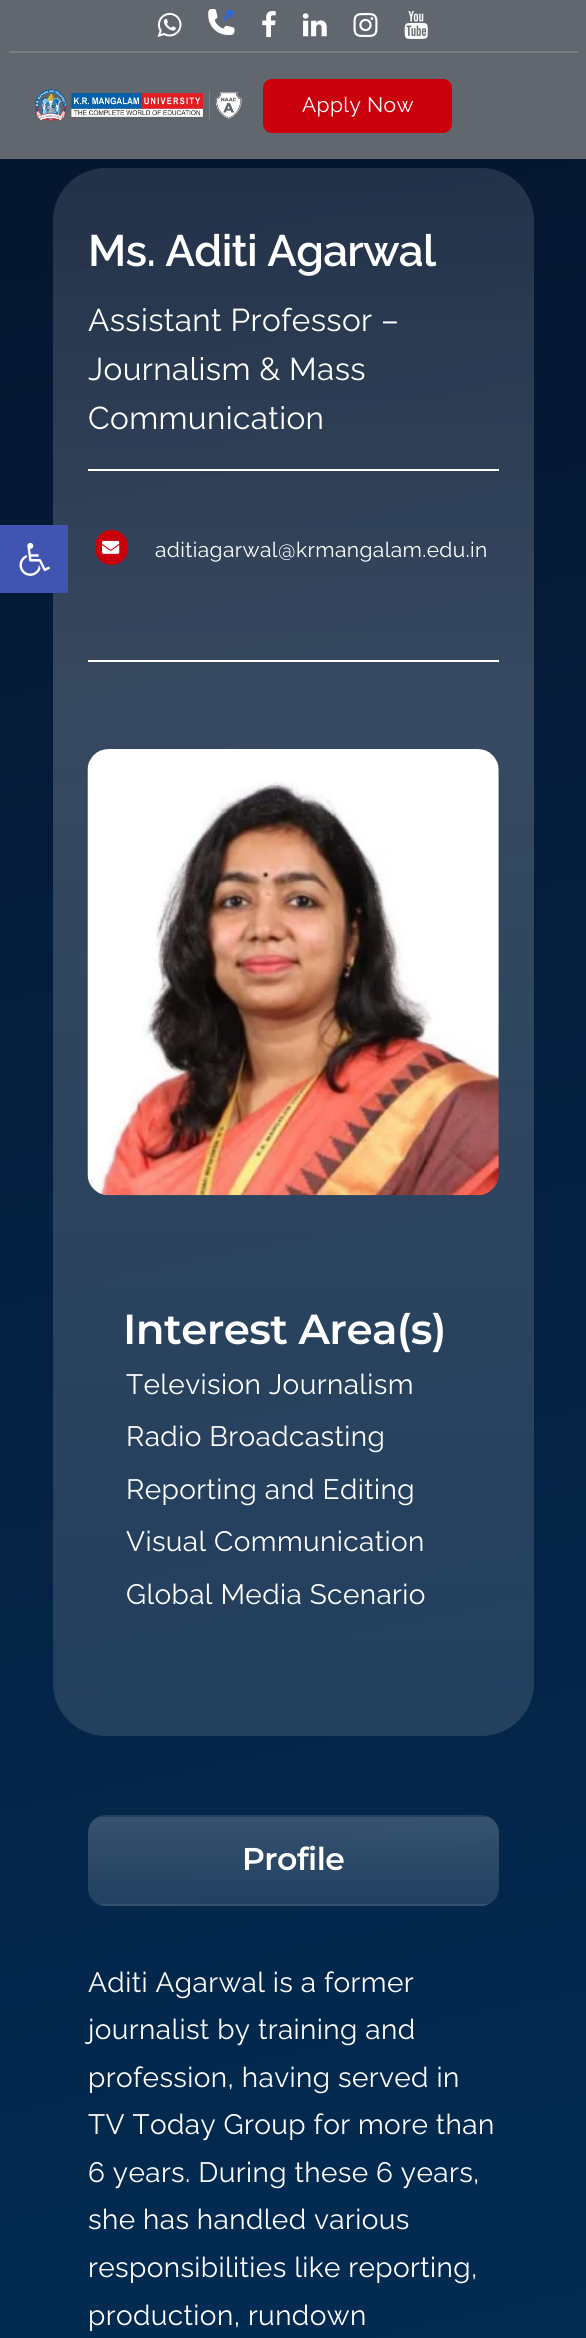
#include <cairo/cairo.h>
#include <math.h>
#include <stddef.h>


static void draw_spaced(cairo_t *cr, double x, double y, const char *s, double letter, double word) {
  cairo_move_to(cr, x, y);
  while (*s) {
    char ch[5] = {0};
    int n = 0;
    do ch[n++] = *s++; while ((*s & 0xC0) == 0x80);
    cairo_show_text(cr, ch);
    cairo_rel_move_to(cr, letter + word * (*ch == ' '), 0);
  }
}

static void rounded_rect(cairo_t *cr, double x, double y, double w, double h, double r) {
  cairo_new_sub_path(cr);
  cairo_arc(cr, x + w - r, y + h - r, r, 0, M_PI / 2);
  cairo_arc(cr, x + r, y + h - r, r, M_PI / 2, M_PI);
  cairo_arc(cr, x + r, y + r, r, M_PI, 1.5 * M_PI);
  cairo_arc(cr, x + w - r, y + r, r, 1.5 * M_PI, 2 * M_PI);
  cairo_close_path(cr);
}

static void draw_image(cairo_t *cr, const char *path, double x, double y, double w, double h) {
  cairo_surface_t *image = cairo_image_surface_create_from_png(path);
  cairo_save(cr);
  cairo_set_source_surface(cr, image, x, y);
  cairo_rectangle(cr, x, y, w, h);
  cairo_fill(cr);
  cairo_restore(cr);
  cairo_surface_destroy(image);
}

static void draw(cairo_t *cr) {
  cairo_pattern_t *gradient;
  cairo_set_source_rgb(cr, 1, 1, 1);
  cairo_paint(cr);
  gradient = cairo_pattern_create_linear(-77, 16, 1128, 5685);
  cairo_pattern_add_color_stop_rgba(gradient, 0.04, 5 / 255.0, 22 / 255.0, 48 / 255.0, 1);
  cairo_pattern_add_color_stop_rgba(gradient, 1, 0, 78 / 255.0, 138 / 255.0, 1);
  cairo_set_source(cr, gradient);
  cairo_pattern_destroy(gradient);
  cairo_rectangle(cr, 0, 159, 586, 2179);
  cairo_fill(cr);
  gradient = cairo_pattern_create_linear(293, 697, 293, 168);
  cairo_pattern_add_color_stop_rgba(gradient, 0, 1, 1, 1, 0.2);
  cairo_pattern_add_color_stop_rgba(gradient, 1, 1, 1, 1, 0.12);
  cairo_set_source(cr, gradient);
  cairo_pattern_destroy(gradient);
  cairo_new_path(cr);
  cairo_move_to(cr, 106, 168);
  cairo_line_to(cr, 481, 168);
  cairo_curve_to(cr, 510.5, 168, 534, 191.5, 534, 221);
  cairo_line_to(cr, 534, 697);
  cairo_line_to(cr, 53, 697);
  cairo_line_to(cr, 53, 221);
  cairo_curve_to(cr, 53, 191.5, 76.5, 168, 106, 168);
  cairo_close_path(cr);
  cairo_fill(cr);
  cairo_set_source_rgb(cr, 64 / 255.0, 84 / 255.0, 178 / 255.0);
  cairo_rectangle(cr, 0, 525, 68, 68);
  cairo_fill(cr);
  draw_image(cr, "images/1.png", 19, 543, 31, 33);
  cairo_set_source_rgb(cr, 97 / 255.0, 103 / 255.0, 110 / 255.0);
  cairo_rectangle(cr, 0, 0, 586, 159);
  cairo_fill(cr);
  cairo_set_source_rgb(cr, 121 / 255.0, 125 / 255.0, 129 / 255.0);
  cairo_rectangle(cr, 9, 51, 569, 2);
  cairo_fill(cr);
  draw_image(cr, "images/2.png", 157, 12, 25, 25);
  draw_image(cr, "images/3.png", 208, 9, 27, 26);
  draw_image(cr, "images/4.png", 262, 11, 14, 26);
  draw_image(cr, "images/5.png", 302, 13, 25, 24);
  draw_image(cr, "images/6.png", 353, 13, 25, 24);
  draw_image(cr, "images/7.png", 404, 11, 24, 28);
  draw_image(cr, "images/8.png", 35, 89, 207, 32);
  cairo_set_source_rgb(cr, 203 / 255.0, 0, 13 / 255.0);
  rounded_rect(cr, 263, 79, 189, 54, 9);
  cairo_fill(cr);
  cairo_set_source_rgb(cr, 1, 1, 1);
  cairo_rectangle(cr, 88, 469, 411, 2);
  cairo_fill(cr);
  cairo_rectangle(cr, 88, 660, 411, 2);
  cairo_fill(cr);
  cairo_set_source_rgb(cr, 203 / 255.0, 0, 13 / 255.0);
  rounded_rect(cr, 95, 530, 33, 35, 16.5);
  cairo_fill(cr);
  draw_image(cr, "images/9.png", 102, 540, 18, 14);
  gradient = cairo_pattern_create_linear(293, 697, 293, 1736);
  cairo_pattern_add_color_stop_rgba(gradient, 0, 1, 1, 1, 0.2);
  cairo_pattern_add_color_stop_rgba(gradient, 1, 1, 1, 1, 0.12);
  cairo_set_source(cr, gradient);
  cairo_pattern_destroy(gradient);
  cairo_new_path(cr);
  cairo_move_to(cr, 53, 697);
  cairo_line_to(cr, 534, 697);
  cairo_line_to(cr, 534, 1683);
  cairo_curve_to(cr, 534, 1712.5, 510.5, 1736, 481, 1736);
  cairo_line_to(cr, 106, 1736);
  cairo_curve_to(cr, 76.5, 1736, 53, 1712.5, 53, 1683);
  cairo_close_path(cr);
  cairo_fill(cr);
  draw_image(cr, "images/10.png", 87, 749, 412, 447);
  cairo_save(cr);
  rounded_rect(cr, 88, 1815, 411, 91, 18);
  cairo_clip(cr);
  gradient = cairo_pattern_create_linear(293, 1729, 293, 1817);
  cairo_pattern_add_color_stop_rgba(gradient, 0, 54 / 255.0, 81 / 255.0, 110 / 255.0, 1);
  cairo_pattern_add_color_stop_rgba(gradient, 1, 34 / 255.0, 64 / 255.0, 96 / 255.0, 1);
  cairo_set_source(cr, gradient);
  cairo_pattern_destroy(gradient);
  cairo_rectangle(cr, 98, 1815, 391, 2);
  cairo_fill(cr);
  gradient = cairo_pattern_create_linear(293, 1817, 293, 1904);
  cairo_pattern_add_color_stop_rgba(gradient, 0, 1, 1, 1, 0.2);
  cairo_pattern_add_color_stop_rgba(gradient, 1, 1, 1, 1, 0.12);
  cairo_set_source(cr, gradient);
  cairo_pattern_destroy(gradient);
  cairo_rectangle(cr, 88, 1817, 411, 87);
  cairo_fill(cr);
  gradient = cairo_pattern_create_linear(293, 1904, 293, 1992);
  cairo_pattern_add_color_stop_rgba(gradient, 0, 54 / 255.0, 82 / 255.0, 111 / 255.0, 1);
  cairo_pattern_add_color_stop_rgba(gradient, 1, 33 / 255.0, 65 / 255.0, 97 / 255.0, 1);
  cairo_set_source(cr, gradient);
  cairo_pattern_destroy(gradient);
  cairo_rectangle(cr, 98, 1904, 391, 2);
  cairo_fill(cr);
  cairo_restore(cr);
  cairo_select_font_face(cr, "Raleway", CAIRO_FONT_SLANT_NORMAL, CAIRO_FONT_WEIGHT_NORMAL);
  cairo_set_font_size(cr, 21);
  cairo_set_source_rgb(cr, 1, 1, 1);
  draw_spaced(cr, 302, 112, "Apply Now", 0.4, 0);
  cairo_select_font_face(cr, "Raleway SemiBold", CAIRO_FONT_SLANT_NORMAL, CAIRO_FONT_WEIGHT_NORMAL);
  cairo_set_font_size(cr, 44);
  draw_spaced(cr, 88, 266, "Ms. Aditi Agarwal", -0.7, 0);
  cairo_select_font_face(cr, "Raleway", CAIRO_FONT_SLANT_NORMAL, CAIRO_FONT_WEIGHT_NORMAL);
  cairo_set_font_size(cr, 31.5);
  draw_spaced(cr, 88, 331, "Assistant Professor –", 0.4, 0);
  draw_spaced(cr, 88, 380, "Journalism & Mass", 0.4, 0);
  draw_spaced(cr, 88, 429, "Communication", 0.4, 0);
  cairo_set_font_size(cr, 21);
  draw_spaced(cr, 155, 557, "aditiagarwal@krmangalam.edu.in", 0.4, 0);
  cairo_select_font_face(cr, "Montserrat SemiBold", CAIRO_FONT_SLANT_NORMAL, CAIRO_FONT_WEIGHT_NORMAL);
  cairo_set_font_size(cr, 42);
  draw_spaced(cr, 123, 1344, "Interest Area(s)", -0.6, 0);
  cairo_select_font_face(cr, "Raleway", CAIRO_FONT_SLANT_NORMAL, CAIRO_FONT_WEIGHT_NORMAL);
  cairo_set_font_size(cr, 28);
  draw_spaced(cr, 126, 1394, "Television Journalism", 0.4, 0);
  draw_spaced(cr, 126, 1446, "Radio Broadcasting", 0.4, 0);
  draw_spaced(cr, 126, 1499, "Reporting and Editing", 0.4, 0);
  draw_spaced(cr, 126, 1551, "Visual Communication", 0.4, 0);
  draw_spaced(cr, 126, 1604, "Global Media Scenario", 0.4, 0);
  cairo_select_font_face(cr, "Montserrat SemiBold", CAIRO_FONT_SLANT_NORMAL, CAIRO_FONT_WEIGHT_NORMAL);
  cairo_set_font_size(cr, 31.5);
  draw_spaced(cr, 242, 1870, "Profile", -0.5, 0);
  cairo_select_font_face(cr, "Raleway", CAIRO_FONT_SLANT_NORMAL, CAIRO_FONT_WEIGHT_NORMAL);
  cairo_set_font_size(cr, 28);
  draw_spaced(cr, 88, 1992, "Aditi Agarwal is a former", 0.4, 0);
  draw_spaced(cr, 88, 2039, "journalist by training and", 0.4, 0);
  draw_spaced(cr, 88, 2087, "profession, having served in", 0.4, 0);
  draw_spaced(cr, 88, 2134, "TV Today Group for more than", 0.4, 0);
  draw_spaced(cr, 88, 2182, "6 years. During these 6 years,", 0.4, 0);
  draw_spaced(cr, 88, 2229, "she has handled various", 0.4, 0);
  draw_spaced(cr, 88, 2277, "responsibilities like reporting,", 0.4, 0);
  draw_spaced(cr, 88, 2325, "production, rundown", 0.4, 0);
}

int main(void) {
  cairo_surface_t *surface = cairo_image_surface_create(CAIRO_FORMAT_RGB24, 586, 2338);
  cairo_t *cr = cairo_create(surface);
  cairo_font_options_t *options = cairo_font_options_create();
  cairo_font_options_set_hint_metrics(options, CAIRO_HINT_METRICS_OFF);
  cairo_font_options_set_hint_style(options, CAIRO_HINT_STYLE_NONE);
  cairo_set_font_options(cr, options);
  cairo_set_miter_limit(cr, 4);
  draw(cr);
  cairo_surface_write_to_png(surface, "out.png");
  cairo_font_options_destroy(options);
  cairo_destroy(cr);
  cairo_surface_destroy(surface);
  return 0;
}
